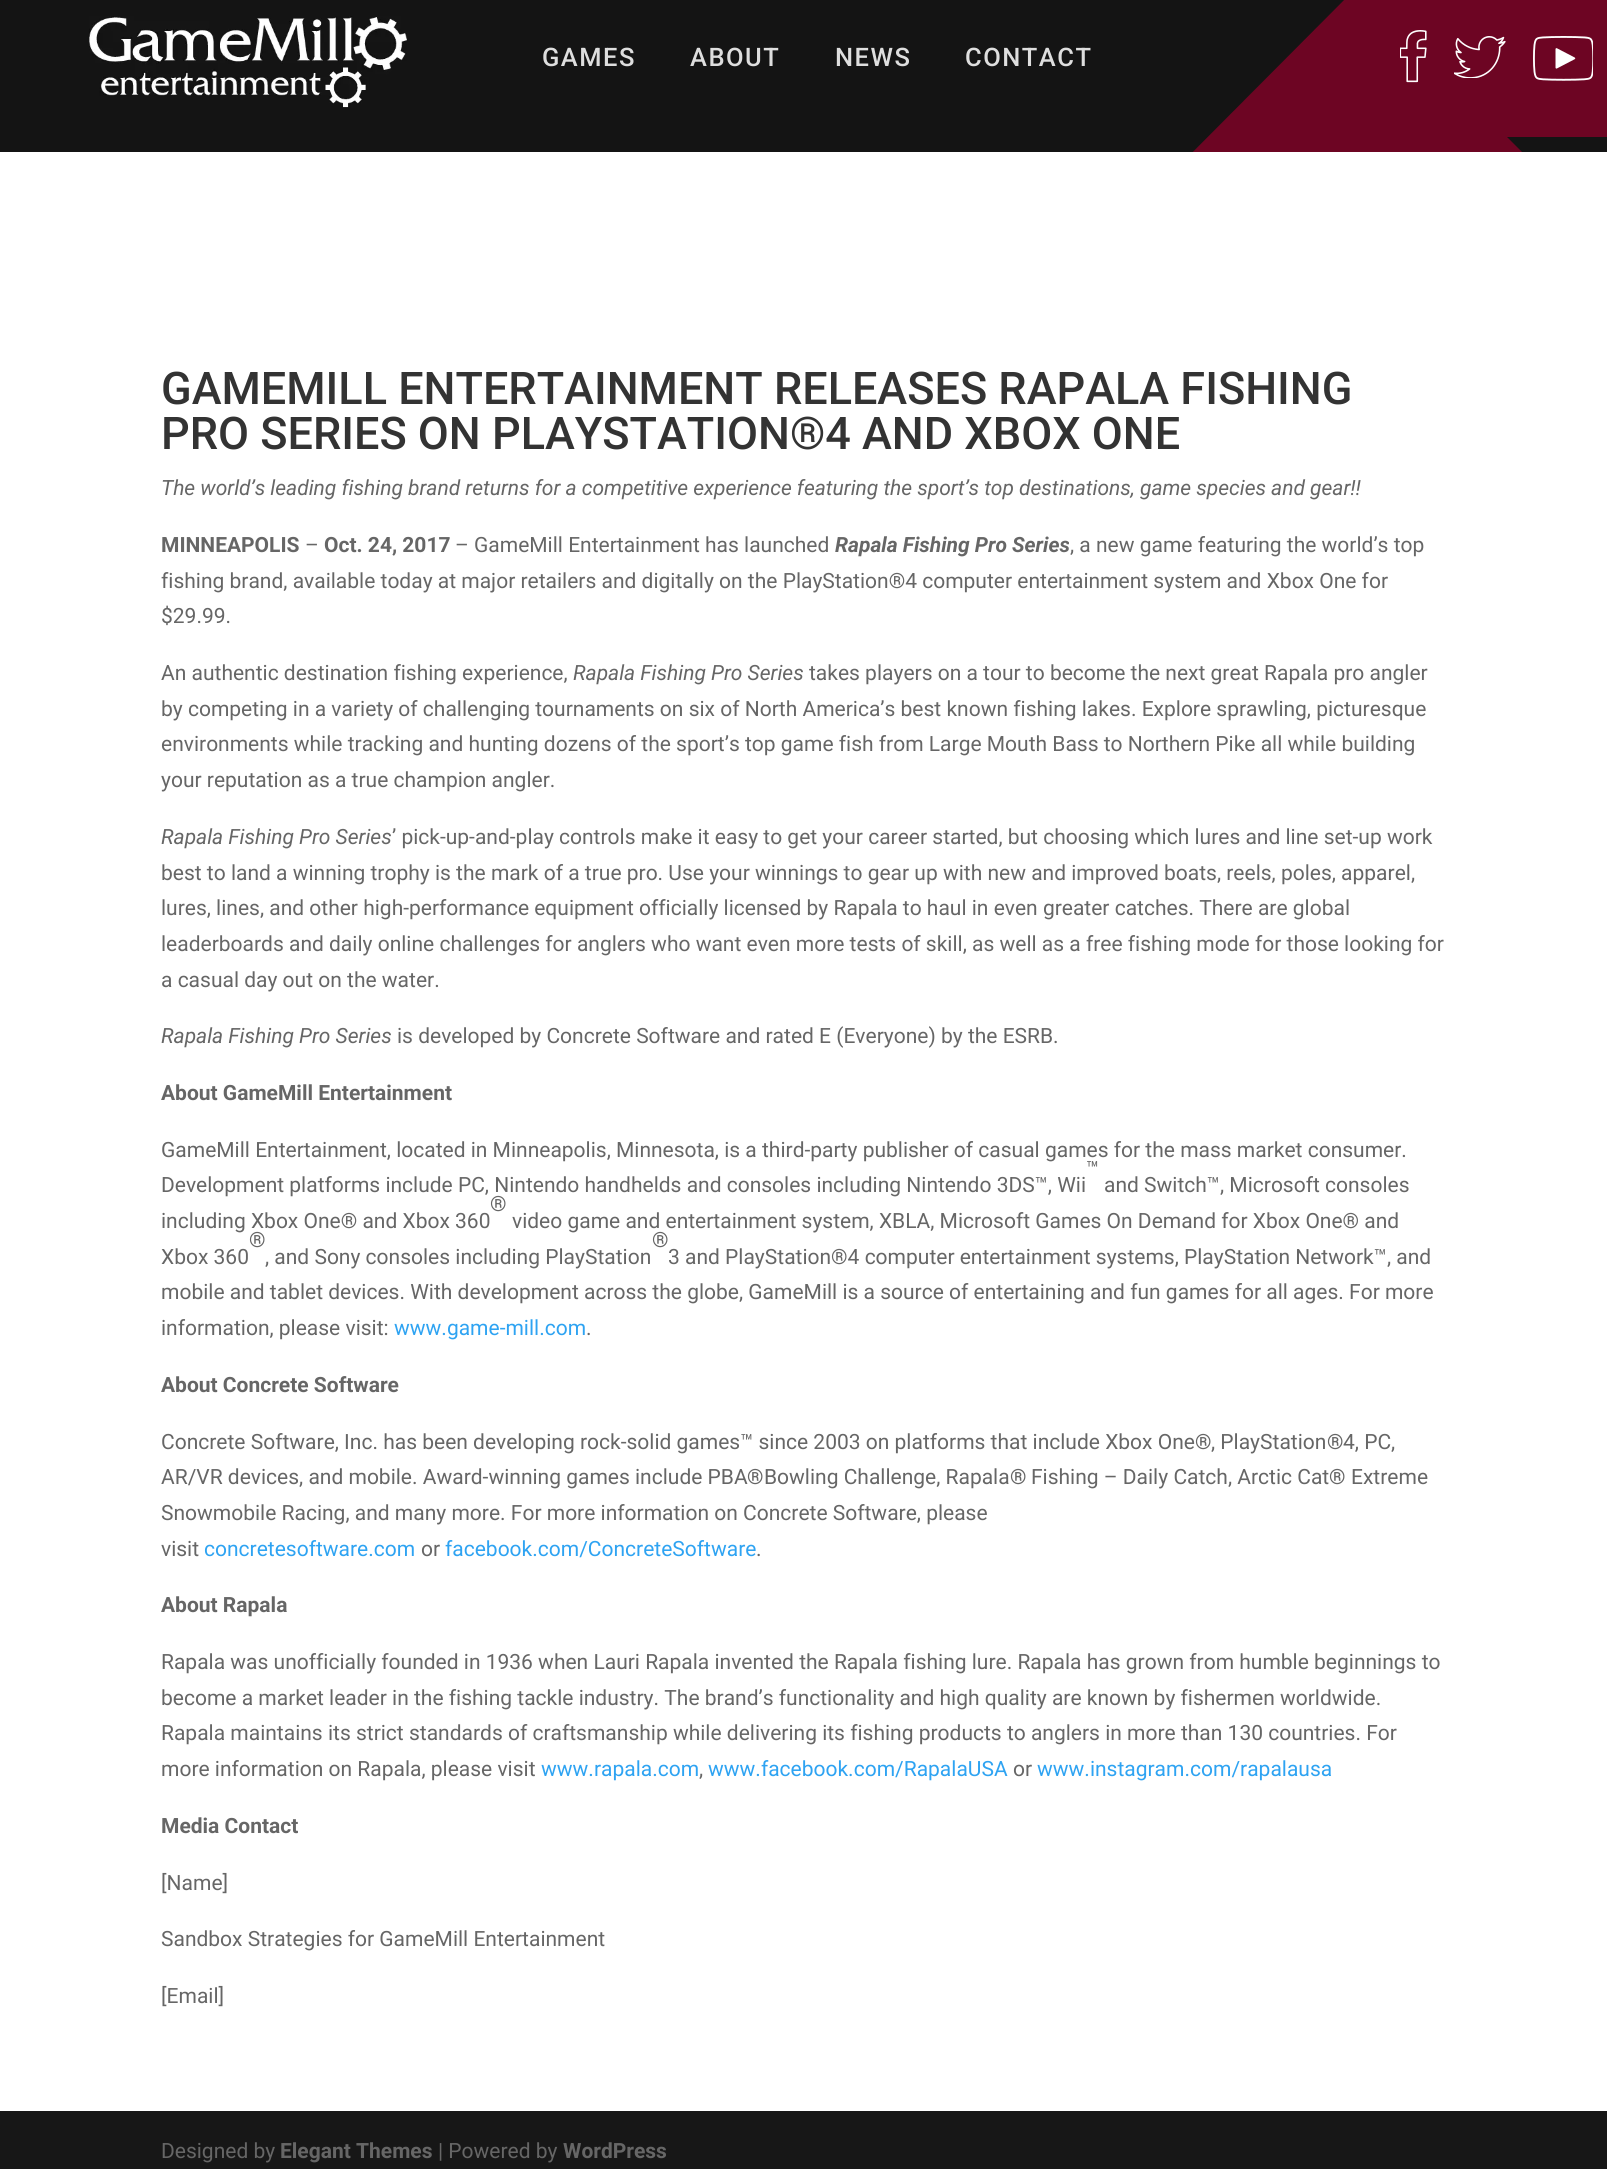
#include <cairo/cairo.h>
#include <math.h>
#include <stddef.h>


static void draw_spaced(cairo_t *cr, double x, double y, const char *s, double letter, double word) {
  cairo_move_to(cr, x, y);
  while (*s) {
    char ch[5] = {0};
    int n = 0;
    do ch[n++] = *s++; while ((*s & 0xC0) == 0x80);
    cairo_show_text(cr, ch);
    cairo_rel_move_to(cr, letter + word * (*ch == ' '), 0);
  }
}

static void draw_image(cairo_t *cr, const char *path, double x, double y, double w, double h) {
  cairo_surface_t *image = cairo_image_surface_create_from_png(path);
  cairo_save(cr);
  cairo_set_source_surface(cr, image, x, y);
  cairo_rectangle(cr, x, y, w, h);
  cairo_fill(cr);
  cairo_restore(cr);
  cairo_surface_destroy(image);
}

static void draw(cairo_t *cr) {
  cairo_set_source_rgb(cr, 1, 1, 1);
  cairo_paint(cr);
  cairo_set_source_rgb(cr, 20 / 255.0, 20 / 255.0, 20 / 255.0);
  cairo_rectangle(cr, 0, 0, 1607, 152);
  cairo_fill(cr);
  draw_image(cr, "images/1.png", 89, 16, 318, 92);
  cairo_set_source_rgb(cr, 109 / 255.0, 5 / 255.0, 35 / 255.0);
  cairo_rectangle(cr, 1370, 0, 237, 137);
  cairo_fill(cr);
  cairo_save(cr);
  cairo_rectangle(cr, 0, 0, 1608, 152);
  cairo_clip(cr);
  cairo_new_path(cr);
  cairo_move_to(cr, 1357, -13);
  cairo_line_to(cr, 1569, 199);
  cairo_line_to(cr, 1357, 412);
  cairo_line_to(cr, 1145, 200);
  cairo_close_path(cr);
  cairo_fill(cr);
  cairo_restore(cr);
  draw_image(cr, "images/2.png", 1400, 30, 27, 53);
  draw_image(cr, "images/3.png", 1454, 36, 52, 42);
  draw_image(cr, "images/4.png", 1533, 36, 60, 45);
  cairo_set_source_rgb(cr, 23 / 255.0, 23 / 255.0, 23 / 255.0);
  cairo_rectangle(cr, 0, 2111, 1607, 58);
  cairo_fill(cr);
  cairo_select_font_face(cr, "Roboto Medium", CAIRO_FONT_SLANT_NORMAL, CAIRO_FONT_WEIGHT_NORMAL);
  cairo_set_font_size(cr, 25.5);
  cairo_set_source_rgb(cr, 222 / 255.0, 222 / 255.0, 222 / 255.0);
  draw_spaced(cr, 542, 66, "GAMES", 1.5, 0);
  draw_spaced(cr, 690, 66, "ABOUT", 1.5, 0);
  draw_spaced(cr, 835, 66, "NEWS", 1.5, 0);
  draw_spaced(cr, 965, 66, "CONTACT", 1.5, 0);
  cairo_set_font_size(cr, 45);
  cairo_set_source_rgb(cr, 51 / 255.0, 51 / 255.0, 51 / 255.0);
  cairo_move_to(cr, 161, 404);
  cairo_show_text(cr, "GAMEMILL ENTERTAINMENT RELEASES RAPALA FISHING");
  cairo_move_to(cr, 161, 449);
  cairo_show_text(cr, "PRO SERIES ON PLAYSTATION®4 AND XBOX ONE");
  cairo_select_font_face(cr, "Roboto", CAIRO_FONT_SLANT_ITALIC, CAIRO_FONT_WEIGHT_NORMAL);
  cairo_set_font_size(cr, 21);
  cairo_set_source_rgb(cr, 102 / 255.0, 102 / 255.0, 102 / 255.0);
  cairo_move_to(cr, 161, 495);
  cairo_show_text(cr, "The world’s leading fishing brand returns for a competitive experience featuring the sport’s top destinations, game species and gear!!");
  cairo_select_font_face(cr, "Roboto", CAIRO_FONT_SLANT_NORMAL, CAIRO_FONT_WEIGHT_BOLD);
  cairo_move_to(cr, 161, 552);
  cairo_show_text(cr, "MINNEAPOLIS");
  cairo_select_font_face(cr, "Roboto", CAIRO_FONT_SLANT_NORMAL, CAIRO_FONT_WEIGHT_NORMAL);
  cairo_move_to(cr, 305, 552);
  cairo_show_text(cr, "–");
  cairo_select_font_face(cr, "Roboto", CAIRO_FONT_SLANT_NORMAL, CAIRO_FONT_WEIGHT_BOLD);
  cairo_move_to(cr, 324, 552);
  cairo_show_text(cr, "Oct. 24, 2017");
  cairo_select_font_face(cr, "Roboto", CAIRO_FONT_SLANT_NORMAL, CAIRO_FONT_WEIGHT_NORMAL);
  cairo_move_to(cr, 455, 552);
  cairo_show_text(cr, "– GameMill Entertainment has launched");
  cairo_select_font_face(cr, "Roboto", CAIRO_FONT_SLANT_ITALIC, CAIRO_FONT_WEIGHT_BOLD);
  cairo_move_to(cr, 835, 552);
  cairo_show_text(cr, "Rapala Fishing Pro Series");
  cairo_select_font_face(cr, "Roboto", CAIRO_FONT_SLANT_NORMAL, CAIRO_FONT_WEIGHT_NORMAL);
  cairo_move_to(cr, 1070, 552);
  cairo_show_text(cr, ", a new game featuring the world’s top");
  cairo_move_to(cr, 161, 588);
  cairo_show_text(cr, "fishing brand, available today at major retailers and digitally on the PlayStation®4 computer entertainment system and Xbox One for");
  cairo_move_to(cr, 161, 623);
  cairo_show_text(cr, "$29.99.");
  cairo_move_to(cr, 161, 680);
  cairo_show_text(cr, "An authentic destination fishing experience,");
  cairo_select_font_face(cr, "Roboto", CAIRO_FONT_SLANT_ITALIC, CAIRO_FONT_WEIGHT_NORMAL);
  cairo_move_to(cr, 573, 680);
  cairo_show_text(cr, "Rapala Fishing Pro Series");
  cairo_select_font_face(cr, "Roboto", CAIRO_FONT_SLANT_NORMAL, CAIRO_FONT_WEIGHT_NORMAL);
  cairo_move_to(cr, 809, 680);
  cairo_show_text(cr, "takes players on a tour to become the next great Rapala pro angler");
  cairo_move_to(cr, 161, 716);
  cairo_show_text(cr, "by competing in a variety of challenging tournaments on six of North America’s best known fishing lakes. Explore sprawling, picturesque");
  cairo_move_to(cr, 161, 751);
  cairo_show_text(cr, "environments while tracking and hunting dozens of the sport’s top game fish from Large Mouth Bass to Northern Pike all while building");
  cairo_move_to(cr, 161, 787);
  cairo_show_text(cr, "your reputation as a true champion angler.");
  cairo_select_font_face(cr, "Roboto", CAIRO_FONT_SLANT_ITALIC, CAIRO_FONT_WEIGHT_NORMAL);
  cairo_move_to(cr, 161, 844);
  cairo_show_text(cr, "Rapala Fishing Pro Series");
  cairo_select_font_face(cr, "Roboto", CAIRO_FONT_SLANT_NORMAL, CAIRO_FONT_WEIGHT_NORMAL);
  cairo_move_to(cr, 392, 844);
  cairo_show_text(cr, "’ pick-up-and-play controls make it easy to get your career started, but choosing which lures and line set-up work");
  cairo_move_to(cr, 161, 880);
  cairo_show_text(cr, "best to land a winning trophy is the mark of a true pro. Use your winnings to gear up with new and improved boats, reels, poles, apparel,");
  cairo_move_to(cr, 161, 915);
  cairo_show_text(cr, "lures, lines, and other high-performance equipment officially licensed by Rapala to haul in even greater catches. There are global");
  cairo_move_to(cr, 161, 951);
  cairo_show_text(cr, "leaderboards and daily online challenges for anglers who want even more tests of skill, as well as a free fishing mode for those looking for");
  cairo_move_to(cr, 161, 987);
  cairo_show_text(cr, "a casual day out on the water.");
  cairo_select_font_face(cr, "Roboto", CAIRO_FONT_SLANT_ITALIC, CAIRO_FONT_WEIGHT_NORMAL);
  cairo_move_to(cr, 161, 1043);
  cairo_show_text(cr, "Rapala Fishing Pro Series");
  cairo_select_font_face(cr, "Roboto", CAIRO_FONT_SLANT_NORMAL, CAIRO_FONT_WEIGHT_NORMAL);
  cairo_move_to(cr, 397, 1043);
  cairo_show_text(cr, "is developed by Concrete Software and rated E (Everyone) by the ESRB.");
  cairo_select_font_face(cr, "Roboto", CAIRO_FONT_SLANT_NORMAL, CAIRO_FONT_WEIGHT_BOLD);
  cairo_move_to(cr, 161, 1100);
  cairo_show_text(cr, "About GameMill Entertainment");
  cairo_select_font_face(cr, "Roboto", CAIRO_FONT_SLANT_NORMAL, CAIRO_FONT_WEIGHT_NORMAL);
  cairo_move_to(cr, 161, 1157);
  cairo_show_text(cr, "GameMill Entertainment, located in Minneapolis, Minnesota, is a third-party publisher of casual games for the mass market consumer.");
  cairo_move_to(cr, 1086, 1176);
  cairo_show_text(cr, "™");
  cairo_move_to(cr, 161, 1192);
  cairo_show_text(cr, "Development platforms include PC, Nintendo handhelds and consoles including Nintendo 3DS™, Wii");
  cairo_move_to(cr, 1104, 1192);
  cairo_show_text(cr, "and Switch™, Microsoft consoles");
  cairo_move_to(cr, 490, 1211);
  cairo_show_text(cr, "®");
  cairo_move_to(cr, 161, 1228);
  cairo_show_text(cr, "including Xbox One® and Xbox 360");
  cairo_move_to(cr, 512, 1228);
  cairo_show_text(cr, "video game and entertainment system, XBLA, Microsoft Games On Demand for Xbox One® and");
  cairo_move_to(cr, 249, 1247);
  cairo_show_text(cr, "®");
  cairo_move_to(cr, 652, 1247);
  cairo_show_text(cr, "®");
  cairo_move_to(cr, 161, 1264);
  cairo_show_text(cr, "Xbox 360");
  cairo_move_to(cr, 265, 1264);
  cairo_show_text(cr, ", and Sony consoles including PlayStation");
  cairo_move_to(cr, 668, 1264);
  cairo_show_text(cr, "3 and PlayStation®4 computer entertainment systems, PlayStation Network™, and");
  cairo_move_to(cr, 161, 1299);
  cairo_show_text(cr, "mobile and tablet devices. With development across the globe, GameMill is a source of entertaining and fun games for all ages. For more");
  cairo_move_to(cr, 161, 1335);
  cairo_show_text(cr, "information, please visit:");
  cairo_set_source_rgb(cr, 46 / 255.0, 163 / 255.0, 242 / 255.0);
  cairo_move_to(cr, 394, 1335);
  cairo_show_text(cr, "www.game-mill.com");
  cairo_set_source_rgb(cr, 102 / 255.0, 102 / 255.0, 102 / 255.0);
  cairo_move_to(cr, 586, 1335);
  cairo_show_text(cr, ".");
  cairo_select_font_face(cr, "Roboto", CAIRO_FONT_SLANT_NORMAL, CAIRO_FONT_WEIGHT_BOLD);
  cairo_move_to(cr, 161, 1392);
  cairo_show_text(cr, "About Concrete Software");
  cairo_select_font_face(cr, "Roboto", CAIRO_FONT_SLANT_NORMAL, CAIRO_FONT_WEIGHT_NORMAL);
  cairo_move_to(cr, 161, 1449);
  cairo_show_text(cr, "Concrete Software, Inc. has been developing rock-solid games™ since 2003 on platforms that include Xbox One");
  cairo_select_font_face(cr, "Roboto", CAIRO_FONT_SLANT_NORMAL, CAIRO_FONT_WEIGHT_BOLD);
  cairo_move_to(cr, 1195, 1449);
  cairo_show_text(cr, "®");
  cairo_select_font_face(cr, "Roboto", CAIRO_FONT_SLANT_NORMAL, CAIRO_FONT_WEIGHT_NORMAL);
  cairo_move_to(cr, 1211, 1449);
  cairo_show_text(cr, ", PlayStation");
  cairo_select_font_face(cr, "Roboto", CAIRO_FONT_SLANT_NORMAL, CAIRO_FONT_WEIGHT_BOLD);
  cairo_move_to(cr, 1327, 1449);
  cairo_show_text(cr, "®");
  cairo_select_font_face(cr, "Roboto", CAIRO_FONT_SLANT_NORMAL, CAIRO_FONT_WEIGHT_NORMAL);
  cairo_move_to(cr, 1343, 1449);
  cairo_show_text(cr, "4, PC,");
  cairo_move_to(cr, 161, 1484);
  cairo_show_text(cr, "AR/VR devices, and mobile. Award-winning games include PBA");
  cairo_select_font_face(cr, "Roboto", CAIRO_FONT_SLANT_NORMAL, CAIRO_FONT_WEIGHT_BOLD);
  cairo_move_to(cr, 747, 1484);
  cairo_show_text(cr, "®");
  cairo_select_font_face(cr, "Roboto", CAIRO_FONT_SLANT_NORMAL, CAIRO_FONT_WEIGHT_NORMAL);
  cairo_move_to(cr, 764, 1484);
  cairo_show_text(cr, "Bowling Challenge, Rapala");
  cairo_select_font_face(cr, "Roboto", CAIRO_FONT_SLANT_NORMAL, CAIRO_FONT_WEIGHT_BOLD);
  cairo_move_to(cr, 1010, 1484);
  cairo_show_text(cr, "®");
  cairo_select_font_face(cr, "Roboto", CAIRO_FONT_SLANT_NORMAL, CAIRO_FONT_WEIGHT_NORMAL);
  cairo_move_to(cr, 1031, 1484);
  cairo_show_text(cr, "Fishing – Daily Catch, Arctic Cat");
  cairo_select_font_face(cr, "Roboto", CAIRO_FONT_SLANT_NORMAL, CAIRO_FONT_WEIGHT_BOLD);
  cairo_move_to(cr, 1329, 1484);
  cairo_show_text(cr, "®");
  cairo_select_font_face(cr, "Roboto", CAIRO_FONT_SLANT_NORMAL, CAIRO_FONT_WEIGHT_NORMAL);
  cairo_move_to(cr, 1351, 1484);
  cairo_show_text(cr, "Extreme");
  cairo_move_to(cr, 161, 1520);
  cairo_show_text(cr, "Snowmobile Racing, and many more. For more information on Concrete Software, please");
  cairo_move_to(cr, 161, 1556);
  cairo_show_text(cr, "visit");
  cairo_set_source_rgb(cr, 46 / 255.0, 163 / 255.0, 242 / 255.0);
  cairo_move_to(cr, 204, 1556);
  cairo_show_text(cr, "concretesoftware.com");
  cairo_set_source_rgb(cr, 102 / 255.0, 102 / 255.0, 102 / 255.0);
  cairo_move_to(cr, 421, 1556);
  cairo_show_text(cr, "or");
  cairo_set_source_rgb(cr, 46 / 255.0, 163 / 255.0, 242 / 255.0);
  cairo_move_to(cr, 445, 1556);
  cairo_show_text(cr, "facebook.com/ConcreteSoftware");
  cairo_set_source_rgb(cr, 102 / 255.0, 102 / 255.0, 102 / 255.0);
  cairo_move_to(cr, 756, 1556);
  cairo_show_text(cr, ".");
  cairo_select_font_face(cr, "Roboto", CAIRO_FONT_SLANT_NORMAL, CAIRO_FONT_WEIGHT_BOLD);
  cairo_move_to(cr, 161, 1612);
  cairo_show_text(cr, "About Rapala");
  cairo_select_font_face(cr, "Roboto", CAIRO_FONT_SLANT_NORMAL, CAIRO_FONT_WEIGHT_NORMAL);
  cairo_move_to(cr, 161, 1669);
  cairo_show_text(cr, "Rapala was unofficially founded in 1936 when Lauri Rapala invented the Rapala fishing lure. Rapala has grown from humble beginnings to");
  cairo_move_to(cr, 161, 1705);
  cairo_show_text(cr, "become a market leader in the fishing tackle industry. The brand’s functionality and high quality are known by fishermen worldwide.");
  cairo_move_to(cr, 161, 1740);
  cairo_show_text(cr, "Rapala maintains its strict standards of craftsmanship while delivering its fishing products to anglers in more than 130 countries. For");
  cairo_move_to(cr, 161, 1776);
  cairo_show_text(cr, "more information on Rapala, please visit");
  cairo_set_source_rgb(cr, 46 / 255.0, 163 / 255.0, 242 / 255.0);
  cairo_move_to(cr, 541, 1776);
  cairo_show_text(cr, "www.rapala.com");
  cairo_set_source_rgb(cr, 102 / 255.0, 102 / 255.0, 102 / 255.0);
  cairo_move_to(cr, 699, 1776);
  cairo_show_text(cr, ",");
  cairo_set_source_rgb(cr, 46 / 255.0, 163 / 255.0, 242 / 255.0);
  cairo_move_to(cr, 708, 1776);
  cairo_show_text(cr, "www.facebook.com/RapalaUSA");
  cairo_set_source_rgb(cr, 102 / 255.0, 102 / 255.0, 102 / 255.0);
  cairo_move_to(cr, 1013, 1776);
  cairo_show_text(cr, "or");
  cairo_set_source_rgb(cr, 46 / 255.0, 163 / 255.0, 242 / 255.0);
  cairo_move_to(cr, 1037, 1776);
  cairo_show_text(cr, "www.instagram.com/rapalausa");
  cairo_select_font_face(cr, "Roboto", CAIRO_FONT_SLANT_NORMAL, CAIRO_FONT_WEIGHT_BOLD);
  cairo_set_source_rgb(cr, 102 / 255.0, 102 / 255.0, 102 / 255.0);
  cairo_move_to(cr, 161, 1833);
  cairo_show_text(cr, "Media Contact");
  cairo_select_font_face(cr, "Roboto", CAIRO_FONT_SLANT_NORMAL, CAIRO_FONT_WEIGHT_NORMAL);
  cairo_move_to(cr, 161, 1890);
  cairo_show_text(cr, "[Name]");
  cairo_move_to(cr, 161, 1946);
  cairo_show_text(cr, "Sandbox Strategies for GameMill Entertainment");
  cairo_move_to(cr, 161, 2003);
  cairo_show_text(cr, "[Email]");
  cairo_move_to(cr, 161, 2158);
  cairo_show_text(cr, "Designed by");
  cairo_select_font_face(cr, "Roboto", CAIRO_FONT_SLANT_NORMAL, CAIRO_FONT_WEIGHT_BOLD);
  cairo_move_to(cr, 280, 2158);
  cairo_show_text(cr, "Elegant Themes");
  cairo_select_font_face(cr, "Roboto", CAIRO_FONT_SLANT_NORMAL, CAIRO_FONT_WEIGHT_NORMAL);
  cairo_move_to(cr, 438, 2158);
  cairo_show_text(cr, "| Powered by");
  cairo_select_font_face(cr, "Roboto", CAIRO_FONT_SLANT_NORMAL, CAIRO_FONT_WEIGHT_BOLD);
  cairo_move_to(cr, 563, 2158);
  cairo_show_text(cr, "WordPress");
}

int main(void) {
  cairo_surface_t *surface = cairo_image_surface_create(CAIRO_FORMAT_RGB24, 1607, 2169);
  cairo_t *cr = cairo_create(surface);
  cairo_font_options_t *options = cairo_font_options_create();
  cairo_font_options_set_hint_metrics(options, CAIRO_HINT_METRICS_OFF);
  cairo_font_options_set_hint_style(options, CAIRO_HINT_STYLE_NONE);
  cairo_set_font_options(cr, options);
  cairo_set_miter_limit(cr, 4);
  draw(cr);
  cairo_surface_write_to_png(surface, "out.png");
  cairo_font_options_destroy(options);
  cairo_destroy(cr);
  cairo_surface_destroy(surface);
  return 0;
}
